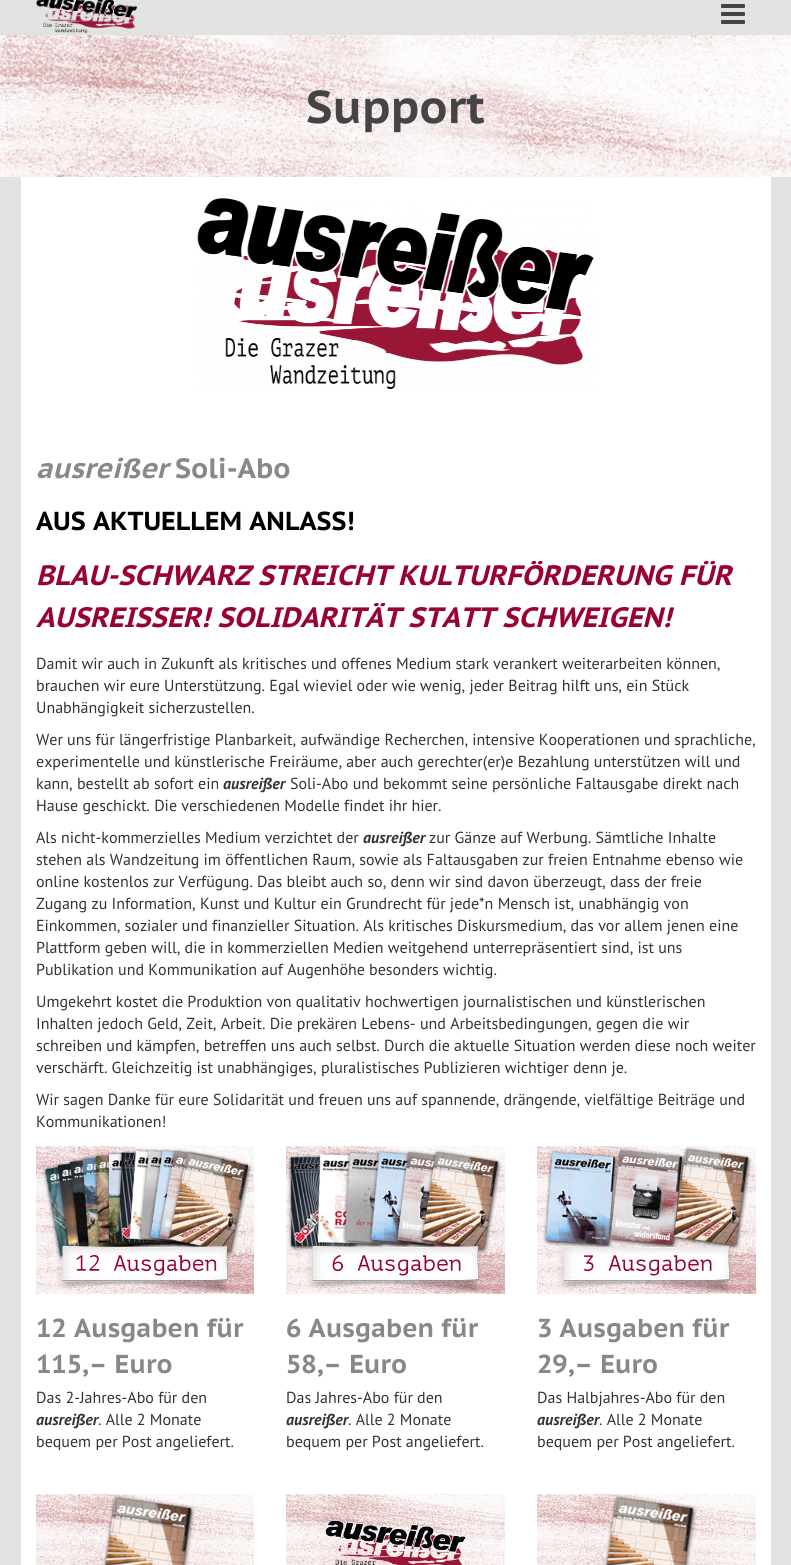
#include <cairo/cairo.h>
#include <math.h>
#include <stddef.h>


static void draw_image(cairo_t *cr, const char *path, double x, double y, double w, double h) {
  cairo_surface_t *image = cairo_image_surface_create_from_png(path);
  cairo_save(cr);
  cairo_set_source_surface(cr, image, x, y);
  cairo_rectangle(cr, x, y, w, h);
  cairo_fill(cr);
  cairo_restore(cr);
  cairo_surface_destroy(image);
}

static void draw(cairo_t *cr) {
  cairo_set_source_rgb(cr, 225 / 255.0, 227 / 255.0, 224 / 255.0);
  cairo_paint(cr);
  draw_image(cr, "images/1.png", 36, 0, 102, 33);
  draw_image(cr, "images/2.png", 721, 4, 24, 20);
  draw_image(cr, "images/3.png", 0, 35, 791, 142);
  cairo_set_source_rgb(cr, 1, 1, 1);
  cairo_rectangle(cr, 21, 177, 750, 1388);
  cairo_fill(cr);
  draw_image(cr, "images/4.png", 197, 198, 397, 191);
  draw_image(cr, "images/5.png", 36, 1146, 218, 148);
  draw_image(cr, "images/6.png", 286, 1146, 219, 148);
  draw_image(cr, "images/7.png", 537, 1146, 219, 148);
  draw_image(cr, "images/8.png", 36, 1494, 218, 71);
  draw_image(cr, "images/9.png", 286, 1494, 219, 71);
  draw_image(cr, "images/10.png", 537, 1494, 219, 71);
  cairo_select_font_face(cr, "PT Sans Caption", CAIRO_FONT_SLANT_NORMAL, CAIRO_FONT_WEIGHT_BOLD);
  cairo_set_font_size(cr, 46);
  cairo_set_source_rgb(cr, 68 / 255.0, 68 / 255.0, 68 / 255.0);
  cairo_move_to(cr, 306, 123);
  cairo_show_text(cr, "Support");
  cairo_select_font_face(cr, "PT Sans Caption", CAIRO_FONT_SLANT_ITALIC, CAIRO_FONT_WEIGHT_BOLD);
  cairo_set_font_size(cr, 28);
  cairo_set_source_rgb(cr, 136 / 255.0, 136 / 255.0, 136 / 255.0);
  cairo_move_to(cr, 36, 478);
  cairo_show_text(cr, "ausreißer");
  cairo_select_font_face(cr, "PT Sans Caption", CAIRO_FONT_SLANT_NORMAL, CAIRO_FONT_WEIGHT_BOLD);
  cairo_move_to(cr, 175, 478);
  cairo_show_text(cr, "Soli-Abo");
  cairo_set_font_size(cr, 26);
  cairo_set_source_rgb(cr, 0, 0, 0);
  cairo_move_to(cr, 36, 530);
  cairo_show_text(cr, "AUS AKTUELLEM ANLASS!");
  cairo_select_font_face(cr, "PT Sans Caption", CAIRO_FONT_SLANT_ITALIC, CAIRO_FONT_WEIGHT_BOLD);
  cairo_set_font_size(cr, 28);
  cairo_set_source_rgb(cr, 153 / 255.0, 0, 51 / 255.0);
  cairo_move_to(cr, 36, 585);
  cairo_show_text(cr, "BLAU-SCHWARZ STREICHT KULTURFÖRDERUNG FÜR");
  cairo_move_to(cr, 36, 627);
  cairo_show_text(cr, "AUSREISSER! SOLIDARITÄT STATT SCHWEIGEN!");
  cairo_select_font_face(cr, "PT Sans", CAIRO_FONT_SLANT_NORMAL, CAIRO_FONT_WEIGHT_NORMAL);
  cairo_set_font_size(cr, 16);
  cairo_set_source_rgb(cr, 51 / 255.0, 51 / 255.0, 51 / 255.0);
  cairo_move_to(cr, 36, 669);
  cairo_show_text(cr, "Damit wir auch in Zukunft als kritisches und offenes Medium stark verankert weiterarbeiten können,");
  cairo_move_to(cr, 36, 691);
  cairo_show_text(cr, "brauchen wir eure Unterstützung. Egal wieviel oder wie wenig, jeder Beitrag hilft uns, ein Stück");
  cairo_move_to(cr, 36, 713);
  cairo_show_text(cr, "Unabhängigkeit sicherzustellen.");
  cairo_move_to(cr, 36, 745);
  cairo_show_text(cr, "Wer uns für längerfristige Planbarkeit, aufwändige Recherchen, intensive Kooperationen und sprachliche,");
  cairo_move_to(cr, 36, 767);
  cairo_show_text(cr, "experimentelle und künstlerische Freiräume, aber auch gerechter(er)e Bezahlung unterstützen will und");
  cairo_move_to(cr, 36, 789);
  cairo_show_text(cr, "kann, bestellt ab sofort ein");
  cairo_select_font_face(cr, "PT Sans", CAIRO_FONT_SLANT_ITALIC, CAIRO_FONT_WEIGHT_BOLD);
  cairo_move_to(cr, 223, 789);
  cairo_show_text(cr, "ausreißer");
  cairo_select_font_face(cr, "PT Sans", CAIRO_FONT_SLANT_NORMAL, CAIRO_FONT_WEIGHT_NORMAL);
  cairo_move_to(cr, 290, 789);
  cairo_show_text(cr, "Soli-Abo und bekommt seine persönliche Faltausgabe direkt nach");
  cairo_move_to(cr, 36, 811);
  cairo_show_text(cr, "Hause geschickt. Die verschiedenen Modelle findet ihr hier.");
  cairo_move_to(cr, 36, 843);
  cairo_show_text(cr, "Als nicht-kommerzielles Medium verzichtet der");
  cairo_select_font_face(cr, "PT Sans", CAIRO_FONT_SLANT_ITALIC, CAIRO_FONT_WEIGHT_BOLD);
  cairo_move_to(cr, 363, 843);
  cairo_show_text(cr, "ausreißer");
  cairo_select_font_face(cr, "PT Sans", CAIRO_FONT_SLANT_NORMAL, CAIRO_FONT_WEIGHT_NORMAL);
  cairo_move_to(cr, 429, 843);
  cairo_show_text(cr, "zur Gänze auf Werbung. Sämtliche Inhalte");
  cairo_move_to(cr, 36, 865);
  cairo_show_text(cr, "stehen als Wandzeitung im öffentlichen Raum, sowie als Faltausgaben zur freien Entnahme ebenso wie");
  cairo_move_to(cr, 36, 887);
  cairo_show_text(cr, "online kostenlos zur Verfügung. Das bleibt auch so, denn wir sind davon überzeugt, dass der freie");
  cairo_move_to(cr, 36, 909);
  cairo_show_text(cr, "Zugang zu Information, Kunst und Kultur ein Grundrecht für jede*n Mensch ist, unabhängig von");
  cairo_move_to(cr, 36, 931);
  cairo_show_text(cr, "Einkommen, sozialer und finanzieller Situation. Als kritisches Diskursmedium, das vor allem jenen eine");
  cairo_move_to(cr, 36, 953);
  cairo_show_text(cr, "Plattform geben will, die in kommerziellen Medien weitgehend unterrepräsentiert sind, ist uns");
  cairo_move_to(cr, 36, 975);
  cairo_show_text(cr, "Publikation und Kommunikation auf Augenhöhe besonders wichtig.");
  cairo_move_to(cr, 36, 1007);
  cairo_show_text(cr, "Umgekehrt kostet die Produktion von qualitativ hochwertigen journalistischen und künstlerischen");
  cairo_move_to(cr, 36, 1029);
  cairo_show_text(cr, "Inhalten jedoch Geld, Zeit, Arbeit. Die prekären Lebens- und Arbeitsbedingungen, gegen die wir");
  cairo_move_to(cr, 36, 1051);
  cairo_show_text(cr, "schreiben und kämpfen, betreffen uns auch selbst. Durch die aktuelle Situation werden diese noch weiter");
  cairo_move_to(cr, 36, 1073);
  cairo_show_text(cr, "verschärft. Gleichzeitig ist unabhängiges, pluralistisches Publizieren wichtiger denn je.");
  cairo_move_to(cr, 36, 1105);
  cairo_show_text(cr, "Wir sagen Danke für eure Solidarität und freuen uns auf spannende, drängende, vielfältige Beiträge und");
  cairo_move_to(cr, 36, 1127);
  cairo_show_text(cr, "Kommunikationen!");
  cairo_select_font_face(cr, "PT Sans Caption", CAIRO_FONT_SLANT_NORMAL, CAIRO_FONT_WEIGHT_BOLD);
  cairo_set_font_size(cr, 26);
  cairo_set_source_rgb(cr, 136 / 255.0, 136 / 255.0, 136 / 255.0);
  cairo_move_to(cr, 36, 1337);
  cairo_show_text(cr, "12 Ausgaben für");
  cairo_move_to(cr, 36, 1373);
  cairo_show_text(cr, "115,– Euro");
  cairo_select_font_face(cr, "PT Sans", CAIRO_FONT_SLANT_NORMAL, CAIRO_FONT_WEIGHT_NORMAL);
  cairo_set_font_size(cr, 16);
  cairo_set_source_rgb(cr, 51 / 255.0, 51 / 255.0, 51 / 255.0);
  cairo_move_to(cr, 36, 1403);
  cairo_show_text(cr, "Das 2-Jahres-Abo für den");
  cairo_select_font_face(cr, "PT Sans", CAIRO_FONT_SLANT_ITALIC, CAIRO_FONT_WEIGHT_BOLD);
  cairo_move_to(cr, 36, 1425);
  cairo_show_text(cr, "ausreißer");
  cairo_select_font_face(cr, "PT Sans", CAIRO_FONT_SLANT_NORMAL, CAIRO_FONT_WEIGHT_NORMAL);
  cairo_move_to(cr, 98, 1425);
  cairo_show_text(cr, ". Alle 2 Monate");
  cairo_move_to(cr, 36, 1447);
  cairo_show_text(cr, "bequem per Post angeliefert.");
  cairo_select_font_face(cr, "PT Sans Caption", CAIRO_FONT_SLANT_NORMAL, CAIRO_FONT_WEIGHT_BOLD);
  cairo_set_font_size(cr, 26);
  cairo_set_source_rgb(cr, 136 / 255.0, 136 / 255.0, 136 / 255.0);
  cairo_move_to(cr, 286, 1337);
  cairo_show_text(cr, "6 Ausgaben für");
  cairo_move_to(cr, 286, 1373);
  cairo_show_text(cr, "58,– Euro");
  cairo_select_font_face(cr, "PT Sans", CAIRO_FONT_SLANT_NORMAL, CAIRO_FONT_WEIGHT_NORMAL);
  cairo_set_font_size(cr, 16);
  cairo_set_source_rgb(cr, 51 / 255.0, 51 / 255.0, 51 / 255.0);
  cairo_move_to(cr, 286, 1403);
  cairo_show_text(cr, "Das Jahres-Abo für den");
  cairo_select_font_face(cr, "PT Sans", CAIRO_FONT_SLANT_ITALIC, CAIRO_FONT_WEIGHT_BOLD);
  cairo_move_to(cr, 286, 1425);
  cairo_show_text(cr, "ausreißer");
  cairo_select_font_face(cr, "PT Sans", CAIRO_FONT_SLANT_NORMAL, CAIRO_FONT_WEIGHT_NORMAL);
  cairo_move_to(cr, 348, 1425);
  cairo_show_text(cr, ". Alle 2 Monate");
  cairo_move_to(cr, 286, 1447);
  cairo_show_text(cr, "bequem per Post angeliefert.");
  cairo_select_font_face(cr, "PT Sans Caption", CAIRO_FONT_SLANT_NORMAL, CAIRO_FONT_WEIGHT_BOLD);
  cairo_set_font_size(cr, 26);
  cairo_set_source_rgb(cr, 136 / 255.0, 136 / 255.0, 136 / 255.0);
  cairo_move_to(cr, 537, 1337);
  cairo_show_text(cr, "3 Ausgaben für");
  cairo_move_to(cr, 537, 1373);
  cairo_show_text(cr, "29,– Euro");
  cairo_select_font_face(cr, "PT Sans", CAIRO_FONT_SLANT_NORMAL, CAIRO_FONT_WEIGHT_NORMAL);
  cairo_set_font_size(cr, 16);
  cairo_set_source_rgb(cr, 51 / 255.0, 51 / 255.0, 51 / 255.0);
  cairo_move_to(cr, 537, 1403);
  cairo_show_text(cr, "Das Halbjahres-Abo für den");
  cairo_select_font_face(cr, "PT Sans", CAIRO_FONT_SLANT_ITALIC, CAIRO_FONT_WEIGHT_BOLD);
  cairo_move_to(cr, 537, 1425);
  cairo_show_text(cr, "ausreißer");
  cairo_select_font_face(cr, "PT Sans", CAIRO_FONT_SLANT_NORMAL, CAIRO_FONT_WEIGHT_NORMAL);
  cairo_move_to(cr, 599, 1425);
  cairo_show_text(cr, ". Alle 2 Monate");
  cairo_move_to(cr, 537, 1447);
  cairo_show_text(cr, "bequem per Post angeliefert.");
}

int main(void) {
  cairo_surface_t *surface = cairo_image_surface_create(CAIRO_FORMAT_RGB24, 791, 1565);
  cairo_t *cr = cairo_create(surface);
  cairo_font_options_t *options = cairo_font_options_create();
  cairo_font_options_set_hint_metrics(options, CAIRO_HINT_METRICS_OFF);
  cairo_font_options_set_hint_style(options, CAIRO_HINT_STYLE_NONE);
  cairo_set_font_options(cr, options);
  cairo_set_miter_limit(cr, 4);
  draw(cr);
  cairo_surface_write_to_png(surface, "out.png");
  cairo_font_options_destroy(options);
  cairo_destroy(cr);
  cairo_surface_destroy(surface);
  return 0;
}
